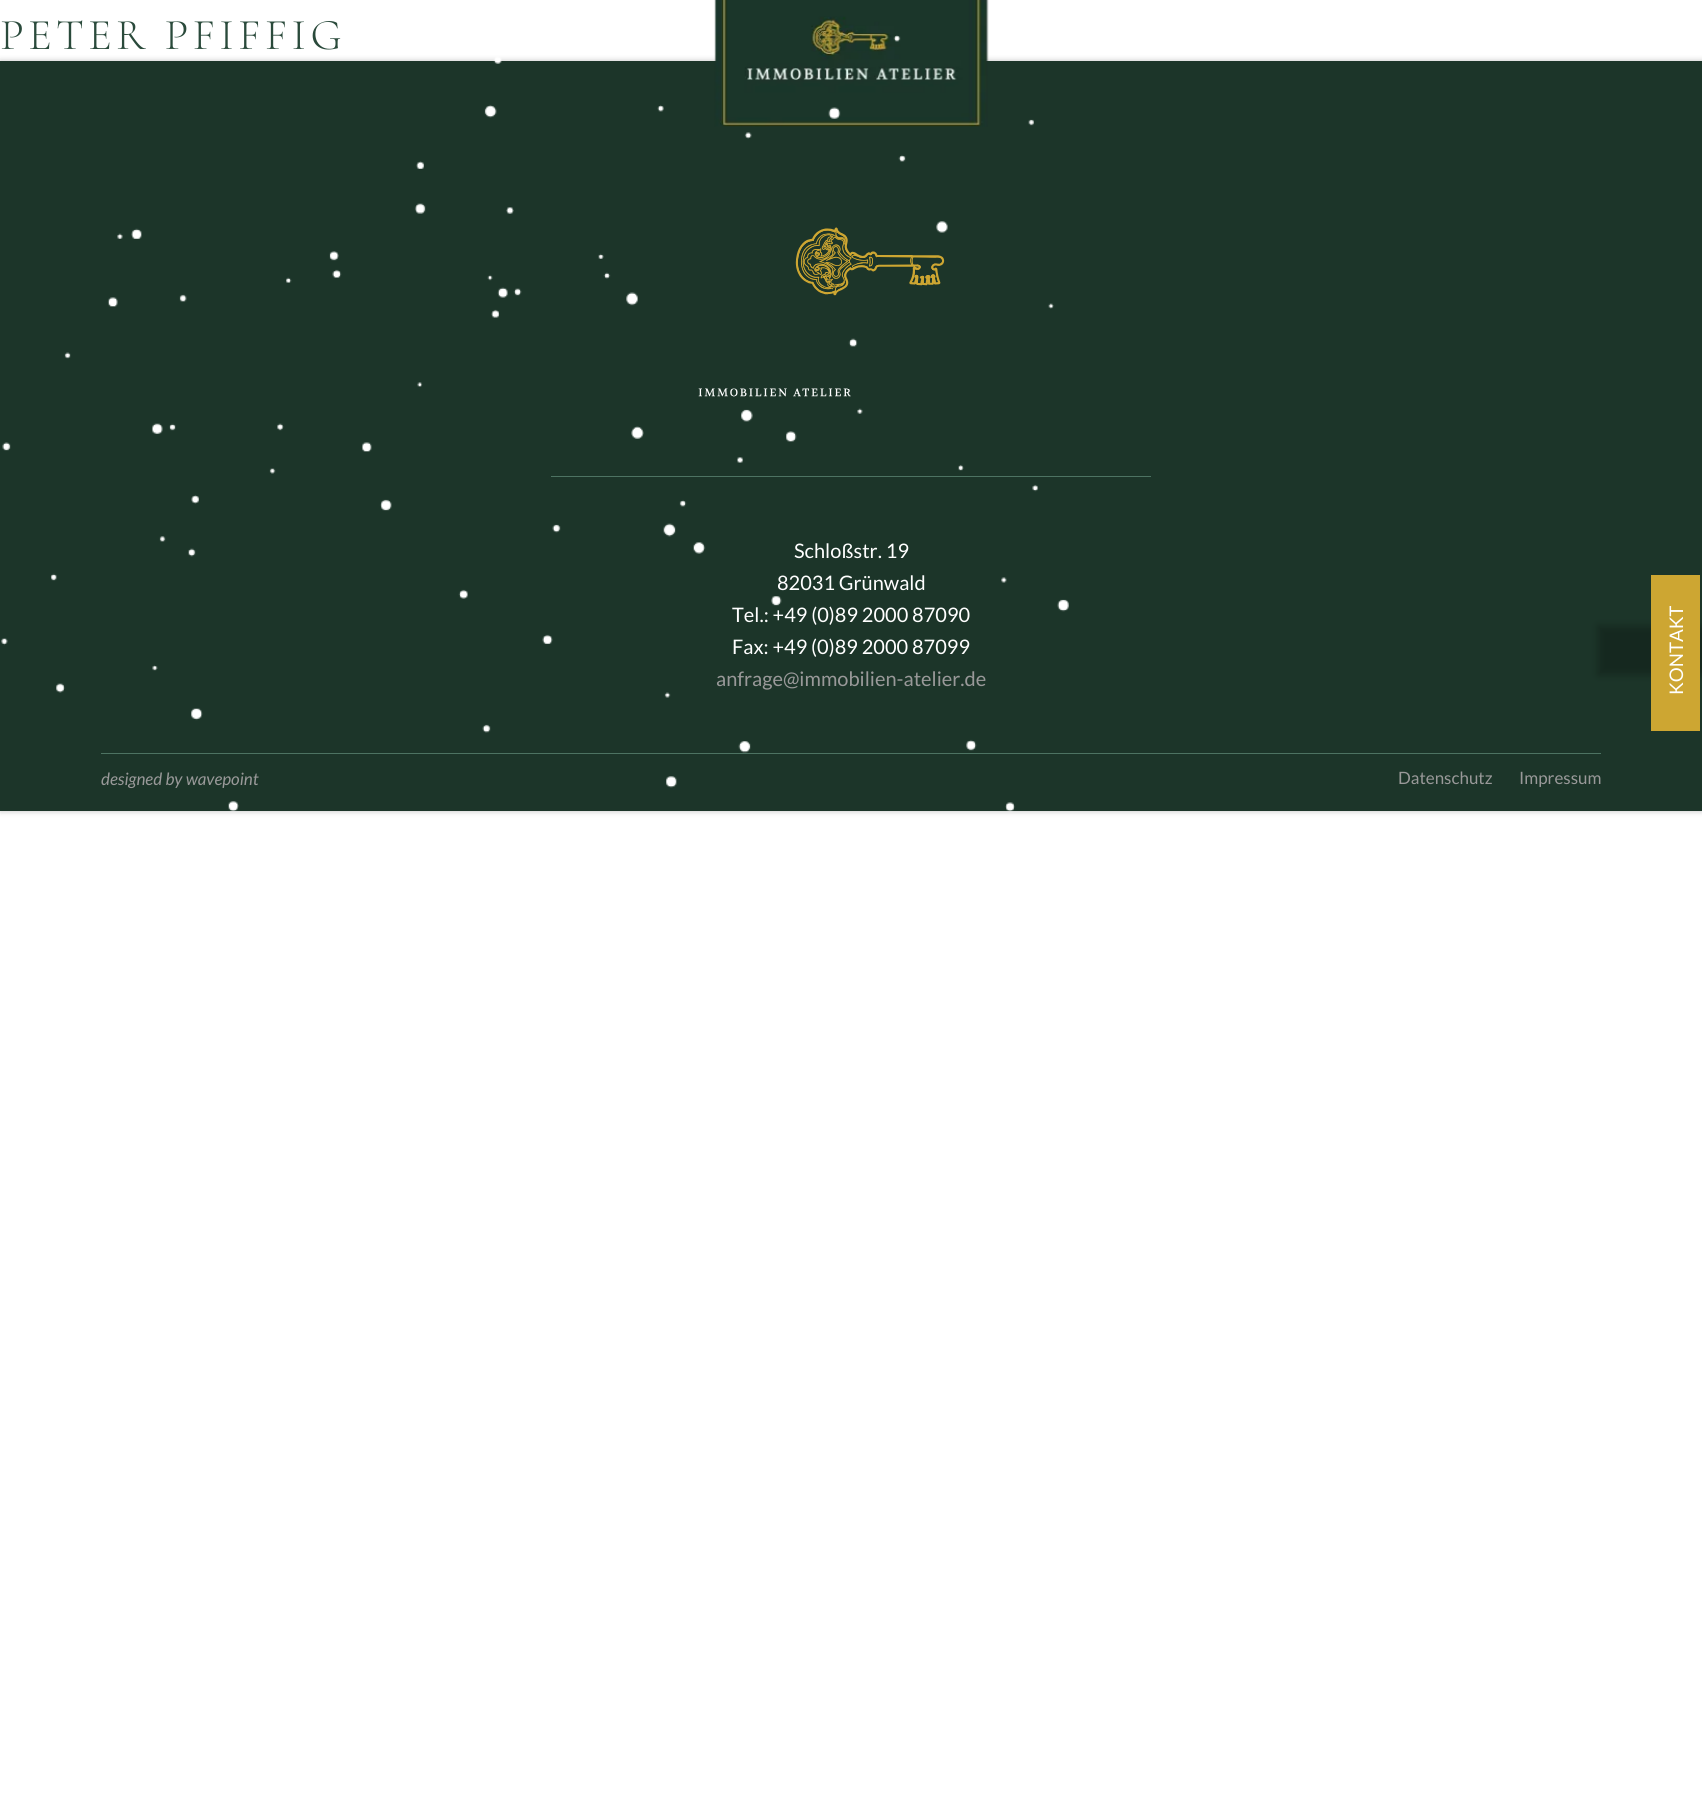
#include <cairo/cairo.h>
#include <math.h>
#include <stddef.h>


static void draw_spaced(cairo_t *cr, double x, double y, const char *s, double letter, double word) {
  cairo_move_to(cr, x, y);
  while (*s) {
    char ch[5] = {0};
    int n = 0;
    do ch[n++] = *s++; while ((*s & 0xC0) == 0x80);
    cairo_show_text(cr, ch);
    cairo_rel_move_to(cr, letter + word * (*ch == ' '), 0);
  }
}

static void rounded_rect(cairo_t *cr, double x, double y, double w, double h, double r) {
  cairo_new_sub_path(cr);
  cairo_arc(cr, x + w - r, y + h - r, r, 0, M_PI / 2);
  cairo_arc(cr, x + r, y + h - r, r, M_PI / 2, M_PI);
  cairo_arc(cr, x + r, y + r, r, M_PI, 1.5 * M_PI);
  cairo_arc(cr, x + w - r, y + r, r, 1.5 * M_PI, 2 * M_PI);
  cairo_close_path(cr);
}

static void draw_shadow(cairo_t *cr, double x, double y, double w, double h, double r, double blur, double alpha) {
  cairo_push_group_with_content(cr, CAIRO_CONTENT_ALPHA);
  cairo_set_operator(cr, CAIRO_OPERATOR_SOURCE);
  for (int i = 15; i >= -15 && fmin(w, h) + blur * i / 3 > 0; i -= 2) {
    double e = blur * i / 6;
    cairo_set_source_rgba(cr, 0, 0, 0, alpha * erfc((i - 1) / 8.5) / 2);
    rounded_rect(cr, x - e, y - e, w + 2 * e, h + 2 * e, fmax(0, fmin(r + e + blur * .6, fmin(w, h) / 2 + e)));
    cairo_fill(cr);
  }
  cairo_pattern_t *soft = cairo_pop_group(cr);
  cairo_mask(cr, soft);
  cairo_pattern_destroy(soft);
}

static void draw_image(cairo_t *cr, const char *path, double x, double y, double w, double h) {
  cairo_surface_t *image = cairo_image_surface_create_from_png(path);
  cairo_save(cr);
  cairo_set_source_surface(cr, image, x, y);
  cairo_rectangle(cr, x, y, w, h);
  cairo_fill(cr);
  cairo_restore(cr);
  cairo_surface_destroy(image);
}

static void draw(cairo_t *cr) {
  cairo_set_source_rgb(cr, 1, 1, 1);
  cairo_paint(cr);
  cairo_set_source_rgb(cr, 0, 0, 0);
  draw_shadow(cr, 0, 61, 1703, 750, 0, 3, 0.25);
  cairo_set_source_rgb(cr, 28 / 255.0, 53 / 255.0, 41 / 255.0);
  cairo_rectangle(cr, 0, 61, 1702, 750);
  cairo_fill(cr);
  draw_image(cr, "images/2.png", 714, 0, 275, 127);
  draw_image(cr, "images/3.png", 698, 227, 247, 170);
  cairo_set_source_rgb(cr, 77 / 255.0, 115 / 255.0, 98 / 255.0);
  cairo_rectangle(cr, 551, 476, 600, 1);
  cairo_fill(cr);
  cairo_rectangle(cr, 101, 753, 1500, 1);
  cairo_fill(cr);
  cairo_set_source_rgb(cr, 0, 0, 0);
  draw_shadow(cr, 1598, 626, 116, 49, 0, 4, 0.25);
  cairo_set_source_rgb(cr, 205 / 255.0, 166 / 255.0, 50 / 255.0);
  cairo_rectangle(cr, 1651, 575, 49, 156);
  cairo_fill(cr);
  cairo_select_font_face(cr, "Cormorant Infant Light", CAIRO_FONT_SLANT_NORMAL, CAIRO_FONT_WEIGHT_NORMAL);
  cairo_set_font_size(cr, 44);
  cairo_set_source_rgb(cr, 42 / 255.0, 74 / 255.0, 59 / 255.0);
  draw_spaced(cr, 0, 49, "PETER PFIFFIG", 4.4, 0);
  cairo_select_font_face(cr, "Lato", CAIRO_FONT_SLANT_NORMAL, CAIRO_FONT_WEIGHT_NORMAL);
  cairo_set_font_size(cr, 20);
  cairo_set_source_rgb(cr, 1, 1, 1);
  cairo_move_to(cr, 794, 558);
  cairo_show_text(cr, "Schloßstr. 19");
  cairo_move_to(cr, 777, 590);
  cairo_show_text(cr, "82031 Grünwald");
  cairo_move_to(cr, 732, 622);
  cairo_show_text(cr, "Tel.: +49 (0)89 2000 87090");
  cairo_move_to(cr, 732, 654);
  cairo_show_text(cr, "Fax: +49 (0)89 2000 87099");
  cairo_set_source_rgb(cr, 153 / 255.0, 153 / 255.0, 153 / 255.0);
  cairo_move_to(cr, 716, 686);
  cairo_show_text(cr, "anfrage@immobilien-atelier.de");
  cairo_select_font_face(cr, "Lato", CAIRO_FONT_SLANT_ITALIC, CAIRO_FONT_WEIGHT_NORMAL);
  cairo_set_font_size(cr, 17);
  cairo_move_to(cr, 101, 785);
  cairo_show_text(cr, "designed by wavepoint");
  draw_image(cr, "images/1.png", 1, 35, 1068, 776);
  cairo_select_font_face(cr, "Lato", CAIRO_FONT_SLANT_NORMAL, CAIRO_FONT_WEIGHT_NORMAL);
  cairo_move_to(cr, 1398, 784);
  cairo_show_text(cr, "Datenschutz");
  cairo_move_to(cr, 1519, 784);
  cairo_show_text(cr, "Impressum");
  cairo_set_font_size(cr, 18.75);
  cairo_set_source_rgb(cr, 1, 1, 1);
  cairo_save(cr);
  cairo_translate(cr, 1683, 695);
  cairo_rotate(cr, -90 * M_PI / 180);
  cairo_move_to(cr, 0, 0);
  cairo_show_text(cr, "KONTAKT");
  cairo_restore(cr);
}

int main(void) {
  cairo_surface_t *surface = cairo_image_surface_create(CAIRO_FORMAT_RGB24, 1702, 1796);
  cairo_t *cr = cairo_create(surface);
  cairo_font_options_t *options = cairo_font_options_create();
  cairo_font_options_set_hint_metrics(options, CAIRO_HINT_METRICS_OFF);
  cairo_font_options_set_hint_style(options, CAIRO_HINT_STYLE_NONE);
  cairo_set_font_options(cr, options);
  cairo_set_miter_limit(cr, 4);
  draw(cr);
  cairo_surface_write_to_png(surface, "out.png");
  cairo_font_options_destroy(options);
  cairo_destroy(cr);
  cairo_surface_destroy(surface);
  return 0;
}
